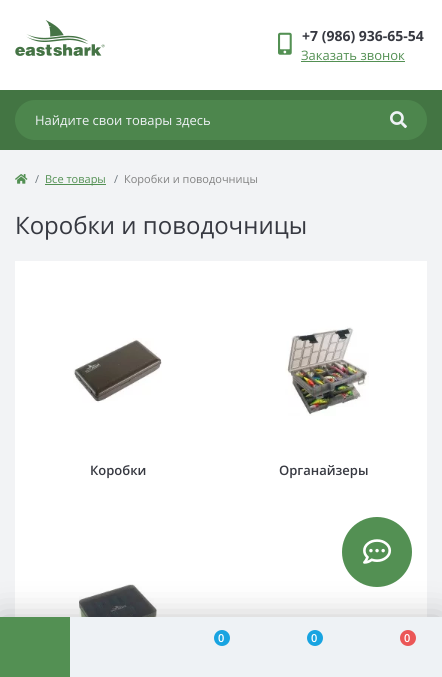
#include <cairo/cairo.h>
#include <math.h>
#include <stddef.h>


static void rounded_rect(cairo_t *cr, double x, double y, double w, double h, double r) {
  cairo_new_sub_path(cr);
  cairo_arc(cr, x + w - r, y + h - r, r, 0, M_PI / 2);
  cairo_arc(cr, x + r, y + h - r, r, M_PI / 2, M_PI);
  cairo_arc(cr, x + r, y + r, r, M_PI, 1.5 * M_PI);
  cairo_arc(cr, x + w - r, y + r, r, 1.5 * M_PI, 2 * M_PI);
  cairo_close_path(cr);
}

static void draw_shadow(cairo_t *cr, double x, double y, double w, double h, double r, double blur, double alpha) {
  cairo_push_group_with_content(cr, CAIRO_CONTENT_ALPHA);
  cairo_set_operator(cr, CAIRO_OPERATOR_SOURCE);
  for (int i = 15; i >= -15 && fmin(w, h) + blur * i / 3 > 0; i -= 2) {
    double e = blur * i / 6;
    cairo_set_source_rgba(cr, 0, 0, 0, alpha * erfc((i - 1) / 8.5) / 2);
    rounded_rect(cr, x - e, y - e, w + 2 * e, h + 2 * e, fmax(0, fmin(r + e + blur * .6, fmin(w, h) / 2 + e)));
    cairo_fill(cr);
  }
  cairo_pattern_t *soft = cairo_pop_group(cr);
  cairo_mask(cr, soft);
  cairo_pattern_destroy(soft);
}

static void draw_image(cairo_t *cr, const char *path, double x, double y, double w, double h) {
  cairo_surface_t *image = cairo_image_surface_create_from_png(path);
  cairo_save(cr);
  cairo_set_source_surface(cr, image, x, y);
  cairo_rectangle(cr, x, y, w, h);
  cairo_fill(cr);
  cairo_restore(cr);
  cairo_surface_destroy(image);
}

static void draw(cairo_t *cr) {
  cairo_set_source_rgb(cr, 242 / 255.0, 243 / 255.0, 245 / 255.0);
  cairo_paint(cr);
  cairo_set_source_rgb(cr, 1, 1, 1);
  cairo_rectangle(cr, 0, 0, 442, 90);
  cairo_fill(cr);
  draw_image(cr, "images/1.png", 15, 20, 90, 36);
  draw_image(cr, "images/2.png", 278, 32, 14, 23);
  cairo_set_source_rgb(cr, 83 / 255.0, 144 / 255.0, 83 / 255.0);
  cairo_rectangle(cr, 301, 61, 104, 1);
  cairo_fill(cr);
  cairo_set_source_rgb(cr, 67 / 255.0, 117 / 255.0, 67 / 255.0);
  cairo_rectangle(cr, 0, 90, 442, 60);
  cairo_fill(cr);
  cairo_set_source_rgb(cr, 77 / 255.0, 134 / 255.0, 77 / 255.0);
  rounded_rect(cr, 15, 100, 412, 40, 20);
  cairo_fill(cr);
  draw_image(cr, "images/3.png", 390, 111, 17, 18);
  draw_image(cr, "images/4.png", 15, 174, 13, 10);
  cairo_set_source_rgb(cr, 83 / 255.0, 144 / 255.0, 83 / 255.0);
  cairo_rectangle(cr, 45, 184, 61, 1);
  cairo_fill(cr);
  cairo_set_source_rgb(cr, 1, 1, 1);
  cairo_rectangle(cr, 15, 261, 412, 356);
  cairo_fill(cr);
  draw_image(cr, "images/5.png", 73, 338, 89, 65);
  draw_image(cr, "images/6.png", 285, 326, 84, 90);
  draw_image(cr, "images/7.png", 79, 584, 78, 33);
  cairo_set_source_rgb(cr, 83 / 255.0, 144 / 255.0, 83 / 255.0);
  cairo_arc(cr, 377, 552, 35, 0, 2 * M_PI);
  cairo_fill(cr);
  draw_image(cr, "images/8.png", 363, 539, 29, 25);
  cairo_set_source_rgb(cr, 0, 0, 0);
  draw_shadow(cr, 0, 617, 442, 60, 0, 16.5, 0.23);
  cairo_set_source_rgb(cr, 238 / 255.0, 242 / 255.0, 245 / 255.0);
  cairo_rectangle(cr, 70, 617, 372, 60);
  cairo_fill(cr);
  cairo_set_source_rgb(cr, 83 / 255.0, 144 / 255.0, 83 / 255.0);
  cairo_rectangle(cr, 0, 617, 70, 60);
  cairo_fill(cr);
  cairo_set_source_rgb(cr, 24 / 255.0, 164 / 255.0, 225 / 255.0);
  cairo_arc(cr, 222, 638, 8, 0, 2 * M_PI);
  cairo_fill(cr);
  cairo_arc(cr, 315, 638, 8, 0, 2 * M_PI);
  cairo_fill(cr);
  cairo_set_source_rgb(cr, 235 / 255.0, 87 / 255.0, 87 / 255.0);
  cairo_arc(cr, 408, 638, 8, 0, 2 * M_PI);
  cairo_fill(cr);
  cairo_select_font_face(cr, "Open Sans", CAIRO_FONT_SLANT_NORMAL, CAIRO_FONT_WEIGHT_BOLD);
  cairo_set_font_size(cr, 14);
  cairo_set_source_rgb(cr, 55 / 255.0, 57 / 255.0, 65 / 255.0);
  cairo_move_to(cr, 302, 41);
  cairo_show_text(cr, "+7 (986) 936-65-54");
  cairo_select_font_face(cr, "Open Sans", CAIRO_FONT_SLANT_NORMAL, CAIRO_FONT_WEIGHT_NORMAL);
  cairo_set_font_size(cr, 13);
  cairo_set_source_rgb(cr, 83 / 255.0, 144 / 255.0, 83 / 255.0);
  cairo_move_to(cr, 301, 60);
  cairo_show_text(cr, "Заказать звонок");
  cairo_set_source_rgb(cr, 238 / 255.0, 242 / 255.0, 245 / 255.0);
  cairo_move_to(cr, 35, 125);
  cairo_show_text(cr, "Найдите свои товары здесь");
  cairo_set_font_size(cr, 11);
  cairo_set_source_rgb(cr, 108 / 255.0, 117 / 255.0, 125 / 255.0);
  cairo_move_to(cr, 35, 183);
  cairo_show_text(cr, "/");
  cairo_set_source_rgb(cr, 83 / 255.0, 144 / 255.0, 83 / 255.0);
  cairo_move_to(cr, 45, 183);
  cairo_show_text(cr, "Все товары");
  cairo_set_source_rgb(cr, 108 / 255.0, 117 / 255.0, 125 / 255.0);
  cairo_move_to(cr, 114, 183);
  cairo_show_text(cr, "/");
  cairo_set_source_rgb(cr, 130 / 255.0, 130 / 255.0, 130 / 255.0);
  cairo_move_to(cr, 124, 183);
  cairo_show_text(cr, "Коробки и поводочницы");
  cairo_set_font_size(cr, 24);
  cairo_set_source_rgb(cr, 55 / 255.0, 57 / 255.0, 65 / 255.0);
  cairo_move_to(cr, 15, 234);
  cairo_show_text(cr, "Коробки и поводочницы");
  cairo_select_font_face(cr, "Open Sans SemiBold", CAIRO_FONT_SLANT_NORMAL, CAIRO_FONT_WEIGHT_NORMAL);
  cairo_set_font_size(cr, 13);
  cairo_move_to(cr, 90, 475);
  cairo_show_text(cr, "Коробки");
  cairo_move_to(cr, 279, 475);
  cairo_show_text(cr, "Органайзеры");
  cairo_set_font_size(cr, 11);
  cairo_set_source_rgb(cr, 1, 1, 1);
  cairo_move_to(cr, 218, 642);
  cairo_show_text(cr, "0");
  cairo_move_to(cr, 311, 642);
  cairo_show_text(cr, "0");
  cairo_move_to(cr, 404, 642);
  cairo_show_text(cr, "0");
}

int main(void) {
  cairo_surface_t *surface = cairo_image_surface_create(CAIRO_FORMAT_RGB24, 442, 677);
  cairo_t *cr = cairo_create(surface);
  cairo_font_options_t *options = cairo_font_options_create();
  cairo_font_options_set_hint_metrics(options, CAIRO_HINT_METRICS_OFF);
  cairo_font_options_set_hint_style(options, CAIRO_HINT_STYLE_NONE);
  cairo_set_font_options(cr, options);
  cairo_set_miter_limit(cr, 4);
  draw(cr);
  cairo_surface_write_to_png(surface, "out.png");
  cairo_font_options_destroy(options);
  cairo_destroy(cr);
  cairo_surface_destroy(surface);
  return 0;
}
